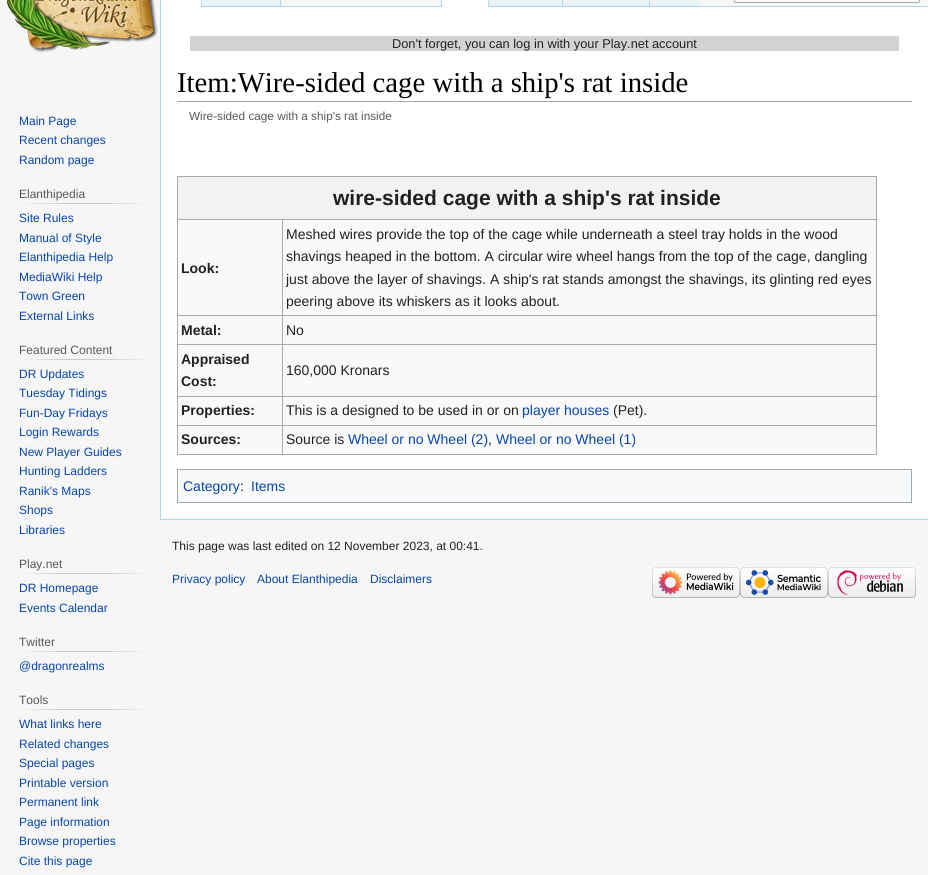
#include <cairo/cairo.h>
#include <math.h>
#include <stddef.h>


static void rounded_rect(cairo_t *cr, double x, double y, double w, double h, double r) {
  cairo_new_sub_path(cr);
  cairo_arc(cr, x + w - r, y + h - r, r, 0, M_PI / 2);
  cairo_arc(cr, x + r, y + h - r, r, M_PI / 2, M_PI);
  cairo_arc(cr, x + r, y + r, r, M_PI, 1.5 * M_PI);
  cairo_arc(cr, x + w - r, y + r, r, 1.5 * M_PI, 2 * M_PI);
  cairo_close_path(cr);
}

static void draw_image(cairo_t *cr, const char *path, double x, double y, double w, double h) {
  cairo_surface_t *image = cairo_image_surface_create_from_png(path);
  cairo_save(cr);
  cairo_set_source_surface(cr, image, x, y);
  cairo_rectangle(cr, x, y, w, h);
  cairo_fill(cr);
  cairo_restore(cr);
  cairo_surface_destroy(image);
}

static void draw(cairo_t *cr) {
  cairo_pattern_t *gradient;
  cairo_set_source_rgb(cr, 246 / 255.0, 246 / 255.0, 246 / 255.0);
  cairo_paint(cr);
  cairo_set_source_rgb(cr, 167 / 255.0, 215 / 255.0, 249 / 255.0);
  cairo_rectangle(cr, 160, 519, 768, 1);
  cairo_fill(cr);
  cairo_rectangle(cr, 160, 6, 1, 514);
  cairo_fill(cr);
  gradient = cairo_pattern_create_linear(161, -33, 161, 7);
  cairo_pattern_add_color_stop_rgba(gradient, 0, 167 / 255.0, 215 / 255.0, 249 / 255.0, 0);
  cairo_pattern_add_color_stop_rgba(gradient, 1, 167 / 255.0, 215 / 255.0, 249 / 255.0, 1);
  cairo_set_source(cr, gradient);
  cairo_pattern_destroy(gradient);
  cairo_rectangle(cr, 160, 0, 1, 7);
  cairo_fill(cr);
  cairo_set_source_rgb(cr, 1, 1, 1);
  cairo_rectangle(cr, 161, 0, 41, 7);
  cairo_fill(cr);
  gradient = cairo_pattern_create_linear(202, -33, 202, 7);
  cairo_pattern_add_color_stop_rgba(gradient, 0, 1, 1, 1, 1);
  cairo_pattern_add_color_stop_rgba(gradient, 1, 167 / 255.0, 215 / 255.0, 249 / 255.0, 1);
  cairo_set_source(cr, gradient);
  cairo_pattern_destroy(gradient);
  cairo_rectangle(cr, 201, 0, 1, 7);
  cairo_fill(cr);
  gradient = cairo_pattern_create_linear(242, 7, 242, -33);
  cairo_pattern_add_color_stop_rgba(gradient, 0, 119 / 255.0, 193 / 255.0, 246 / 255.0, 1);
  cairo_pattern_add_color_stop_rgba(gradient, 0.03, 232 / 255.0, 242 / 255.0, 248 / 255.0, 1);
  cairo_pattern_add_color_stop_rgba(gradient, 1, 1, 1, 1, 1);
  cairo_set_source(cr, gradient);
  cairo_pattern_destroy(gradient);
  cairo_rectangle(cr, 202, 0, 79, 7);
  cairo_fill(cr);
  gradient = cairo_pattern_create_linear(281, -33, 281, 7);
  cairo_pattern_add_color_stop_rgba(gradient, 0, 167 / 255.0, 215 / 255.0, 249 / 255.0, 0);
  cairo_pattern_add_color_stop_rgba(gradient, 1, 167 / 255.0, 215 / 255.0, 249 / 255.0, 1);
  cairo_set_source(cr, gradient);
  cairo_pattern_destroy(gradient);
  cairo_rectangle(cr, 280, 0, 1, 7);
  cairo_fill(cr);
  cairo_set_source_rgb(cr, 167 / 255.0, 215 / 255.0, 249 / 255.0);
  cairo_rectangle(cr, 281, 6, 647, 1);
  cairo_fill(cr);
  gradient = cairo_pattern_create_linear(442, -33, 442, 7);
  cairo_pattern_add_color_stop_rgba(gradient, 0, 167 / 255.0, 215 / 255.0, 249 / 255.0, 0);
  cairo_pattern_add_color_stop_rgba(gradient, 1, 167 / 255.0, 215 / 255.0, 249 / 255.0, 1);
  cairo_set_source(cr, gradient);
  cairo_pattern_destroy(gradient);
  cairo_rectangle(cr, 441, 0, 1, 7);
  cairo_fill(cr);
  cairo_set_source_rgb(cr, 1, 1, 1);
  cairo_rectangle(cr, 442, 0, 47, 7);
  cairo_fill(cr);
  gradient = cairo_pattern_create_linear(489, -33, 489, 7);
  cairo_pattern_add_color_stop_rgba(gradient, 0, 1, 1, 1, 1);
  cairo_pattern_add_color_stop_rgba(gradient, 1, 167 / 255.0, 215 / 255.0, 249 / 255.0, 1);
  cairo_set_source(cr, gradient);
  cairo_pattern_destroy(gradient);
  cairo_rectangle(cr, 488, 0, 1, 7);
  cairo_fill(cr);
  gradient = cairo_pattern_create_linear(526, 7, 526, -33);
  cairo_pattern_add_color_stop_rgba(gradient, 0, 119 / 255.0, 193 / 255.0, 246 / 255.0, 1);
  cairo_pattern_add_color_stop_rgba(gradient, 0.03, 232 / 255.0, 242 / 255.0, 248 / 255.0, 1);
  cairo_pattern_add_color_stop_rgba(gradient, 1, 1, 1, 1, 1);
  cairo_set_source(cr, gradient);
  cairo_pattern_destroy(gradient);
  cairo_rectangle(cr, 489, 0, 74, 6);
  cairo_fill(cr);
  gradient = cairo_pattern_create_linear(563, -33, 563, 7);
  cairo_pattern_add_color_stop_rgba(gradient, 0, 167 / 255.0, 215 / 255.0, 249 / 255.0, 0);
  cairo_pattern_add_color_stop_rgba(gradient, 1, 167 / 255.0, 215 / 255.0, 249 / 255.0, 1);
  cairo_set_source(cr, gradient);
  cairo_pattern_destroy(gradient);
  cairo_rectangle(cr, 562, 0, 1, 7);
  cairo_fill(cr);
  gradient = cairo_pattern_create_linear(607, 7, 607, -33);
  cairo_pattern_add_color_stop_rgba(gradient, 0, 119 / 255.0, 193 / 255.0, 246 / 255.0, 1);
  cairo_pattern_add_color_stop_rgba(gradient, 0.03, 232 / 255.0, 242 / 255.0, 248 / 255.0, 1);
  cairo_pattern_add_color_stop_rgba(gradient, 1, 1, 1, 1, 1);
  cairo_set_source(cr, gradient);
  cairo_pattern_destroy(gradient);
  cairo_rectangle(cr, 563, 0, 87, 6);
  cairo_fill(cr);
  gradient = cairo_pattern_create_linear(650, -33, 650, 7);
  cairo_pattern_add_color_stop_rgba(gradient, 0, 167 / 255.0, 215 / 255.0, 249 / 255.0, 0);
  cairo_pattern_add_color_stop_rgba(gradient, 1, 167 / 255.0, 215 / 255.0, 249 / 255.0, 1);
  cairo_set_source(cr, gradient);
  cairo_pattern_destroy(gradient);
  cairo_rectangle(cr, 649, 0, 1, 7);
  cairo_fill(cr);
  gradient = cairo_pattern_create_linear(676, 7, 676, -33);
  cairo_pattern_add_color_stop_rgba(gradient, 0, 119 / 255.0, 193 / 255.0, 246 / 255.0, 1);
  cairo_pattern_add_color_stop_rgba(gradient, 0.03, 232 / 255.0, 242 / 255.0, 248 / 255.0, 1);
  cairo_pattern_add_color_stop_rgba(gradient, 1, 1, 1, 1, 1);
  cairo_set_source(cr, gradient);
  cairo_pattern_destroy(gradient);
  cairo_rectangle(cr, 650, 0, 51, 6);
  cairo_fill(cr);
  cairo_set_source_rgb(cr, 251 / 255.0, 251 / 255.0, 251 / 255.0);
  rounded_rect(cr, 734.5, -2.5, 185, 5, 1.5);
  cairo_fill_preserve(cr);
  cairo_set_source_rgb(cr, 162 / 255.0, 169 / 255.0, 177 / 255.0);
  cairo_set_line_width(cr, 1);
  cairo_stroke(cr);
  draw_image(cr, "images/1.png", 6, 0, 152, 53);
  gradient = cairo_pattern_create_linear(19, 204, 150, 204);
  cairo_pattern_add_color_stop_rgba(gradient, 0, 246 / 255.0, 246 / 255.0, 246 / 255.0, 1);
  cairo_pattern_add_color_stop_rgba(gradient, 0.33, 200 / 255.0, 204 / 255.0, 209 / 255.0, 1);
  cairo_pattern_add_color_stop_rgba(gradient, 0.66, 200 / 255.0, 204 / 255.0, 209 / 255.0, 1);
  cairo_pattern_add_color_stop_rgba(gradient, 1, 246 / 255.0, 246 / 255.0, 246 / 255.0, 1);
  cairo_set_source(cr, gradient);
  cairo_pattern_destroy(gradient);
  cairo_rectangle(cr, 19, 203, 131, 1);
  cairo_fill(cr);
  gradient = cairo_pattern_create_linear(19, 360, 150, 360);
  cairo_pattern_add_color_stop_rgba(gradient, 0, 246 / 255.0, 246 / 255.0, 246 / 255.0, 1);
  cairo_pattern_add_color_stop_rgba(gradient, 0.33, 200 / 255.0, 204 / 255.0, 209 / 255.0, 1);
  cairo_pattern_add_color_stop_rgba(gradient, 0.66, 200 / 255.0, 204 / 255.0, 209 / 255.0, 1);
  cairo_pattern_add_color_stop_rgba(gradient, 1, 246 / 255.0, 246 / 255.0, 246 / 255.0, 1);
  cairo_set_source(cr, gradient);
  cairo_pattern_destroy(gradient);
  cairo_rectangle(cr, 19, 359, 131, 1);
  cairo_fill(cr);
  gradient = cairo_pattern_create_linear(19, 574, 150, 574);
  cairo_pattern_add_color_stop_rgba(gradient, 0, 246 / 255.0, 246 / 255.0, 246 / 255.0, 1);
  cairo_pattern_add_color_stop_rgba(gradient, 0.33, 200 / 255.0, 204 / 255.0, 209 / 255.0, 1);
  cairo_pattern_add_color_stop_rgba(gradient, 0.66, 200 / 255.0, 204 / 255.0, 209 / 255.0, 1);
  cairo_pattern_add_color_stop_rgba(gradient, 1, 246 / 255.0, 246 / 255.0, 246 / 255.0, 1);
  cairo_set_source(cr, gradient);
  cairo_pattern_destroy(gradient);
  cairo_rectangle(cr, 19, 573, 131, 1);
  cairo_fill(cr);
  gradient = cairo_pattern_create_linear(19, 652, 150, 652);
  cairo_pattern_add_color_stop_rgba(gradient, 0, 246 / 255.0, 246 / 255.0, 246 / 255.0, 1);
  cairo_pattern_add_color_stop_rgba(gradient, 0.33, 200 / 255.0, 204 / 255.0, 209 / 255.0, 1);
  cairo_pattern_add_color_stop_rgba(gradient, 0.66, 200 / 255.0, 204 / 255.0, 209 / 255.0, 1);
  cairo_pattern_add_color_stop_rgba(gradient, 1, 246 / 255.0, 246 / 255.0, 246 / 255.0, 1);
  cairo_set_source(cr, gradient);
  cairo_pattern_destroy(gradient);
  cairo_rectangle(cr, 19, 651, 131, 1);
  cairo_fill(cr);
  gradient = cairo_pattern_create_linear(19, 710, 150, 710);
  cairo_pattern_add_color_stop_rgba(gradient, 0, 246 / 255.0, 246 / 255.0, 246 / 255.0, 1);
  cairo_pattern_add_color_stop_rgba(gradient, 0.33, 200 / 255.0, 204 / 255.0, 209 / 255.0, 1);
  cairo_pattern_add_color_stop_rgba(gradient, 0.66, 200 / 255.0, 204 / 255.0, 209 / 255.0, 1);
  cairo_pattern_add_color_stop_rgba(gradient, 1, 246 / 255.0, 246 / 255.0, 246 / 255.0, 1);
  cairo_set_source(cr, gradient);
  cairo_pattern_destroy(gradient);
  cairo_rectangle(cr, 19, 709, 131, 1);
  cairo_fill(cr);
  cairo_set_source_rgb(cr, 1, 1, 1);
  cairo_rectangle(cr, 161, 7, 767, 512);
  cairo_fill(cr);
  cairo_set_source_rgb(cr, 211 / 255.0, 211 / 255.0, 211 / 255.0);
  cairo_rectangle(cr, 190, 36, 709, 15);
  cairo_fill(cr);
  cairo_set_source_rgb(cr, 162 / 255.0, 169 / 255.0, 177 / 255.0);
  cairo_rectangle(cr, 177, 101, 735, 1);
  cairo_fill(cr);
  cairo_set_source_rgb(cr, 249 / 255.0, 249 / 255.0, 249 / 255.0);
  cairo_rectangle(cr, 178, 220, 698, 234);
  cairo_fill(cr);
  cairo_set_source_rgb(cr, 170 / 255.0, 170 / 255.0, 170 / 255.0);
  cairo_rectangle(cr, 177, 176, 700, 1);
  cairo_fill(cr);
  cairo_rectangle(cr, 876, 176, 1, 279);
  cairo_fill(cr);
  cairo_rectangle(cr, 177, 454, 700, 1);
  cairo_fill(cr);
  cairo_rectangle(cr, 177, 176, 1, 279);
  cairo_fill(cr);
  cairo_set_source_rgb(cr, 242 / 255.0, 242 / 255.0, 242 / 255.0);
  cairo_rectangle(cr, 178, 177, 698, 42);
  cairo_fill(cr);
  cairo_set_source_rgb(cr, 170 / 255.0, 170 / 255.0, 170 / 255.0);
  cairo_rectangle(cr, 282, 219, 595, 1);
  cairo_fill(cr);
  cairo_rectangle(cr, 282, 315, 595, 1);
  cairo_fill(cr);
  cairo_rectangle(cr, 282, 344, 595, 1);
  cairo_fill(cr);
  cairo_rectangle(cr, 282, 396, 595, 1);
  cairo_fill(cr);
  cairo_rectangle(cr, 282, 425, 595, 1);
  cairo_fill(cr);
  cairo_rectangle(cr, 282, 425, 1, 30);
  cairo_fill(cr);
  cairo_rectangle(cr, 177, 425, 106, 1);
  cairo_fill(cr);
  cairo_rectangle(cr, 282, 396, 1, 30);
  cairo_fill(cr);
  cairo_rectangle(cr, 177, 396, 106, 1);
  cairo_fill(cr);
  cairo_rectangle(cr, 282, 344, 1, 53);
  cairo_fill(cr);
  cairo_rectangle(cr, 177, 344, 106, 1);
  cairo_fill(cr);
  cairo_rectangle(cr, 282, 315, 1, 30);
  cairo_fill(cr);
  cairo_rectangle(cr, 177, 315, 106, 1);
  cairo_fill(cr);
  cairo_rectangle(cr, 282, 219, 1, 97);
  cairo_fill(cr);
  cairo_rectangle(cr, 177, 219, 106, 1);
  cairo_fill(cr);
  cairo_set_source_rgb(cr, 248 / 255.0, 249 / 255.0, 250 / 255.0);
  cairo_rectangle(cr, 177.5, 469.5, 734, 33);
  cairo_fill_preserve(cr);
  cairo_set_source_rgb(cr, 162 / 255.0, 169 / 255.0, 177 / 255.0);
  cairo_stroke(cr);
  draw_image(cr, "images/2.png", 652, 567, 88, 31);
  draw_image(cr, "images/3.png", 740, 567, 88, 31);
  draw_image(cr, "images/4.png", 828, 567, 88, 31);
  cairo_select_font_face(cr, "Liberation Sans", CAIRO_FONT_SLANT_NORMAL, CAIRO_FONT_WEIGHT_NORMAL);
  cairo_set_font_size(cr, 12);
  cairo_set_source_rgb(cr, 6 / 255.0, 69 / 255.0, 173 / 255.0);
  cairo_move_to(cr, 19, 125);
  cairo_show_text(cr, "Main Page");
  cairo_move_to(cr, 19, 144);
  cairo_show_text(cr, "Recent changes");
  cairo_move_to(cr, 19, 164);
  cairo_show_text(cr, "Random page");
  cairo_set_source_rgb(cr, 84 / 255.0, 89 / 255.0, 93 / 255.0);
  cairo_move_to(cr, 19, 198);
  cairo_show_text(cr, "Elanthipedia");
  cairo_set_source_rgb(cr, 6 / 255.0, 69 / 255.0, 173 / 255.0);
  cairo_move_to(cr, 19, 222);
  cairo_show_text(cr, "Site Rules");
  cairo_move_to(cr, 19, 242);
  cairo_show_text(cr, "Manual of Style");
  cairo_move_to(cr, 19, 261);
  cairo_show_text(cr, "Elanthipedia Help");
  cairo_move_to(cr, 19, 281);
  cairo_show_text(cr, "MediaWiki Help");
  cairo_move_to(cr, 19, 300);
  cairo_show_text(cr, "Town Green");
  cairo_move_to(cr, 19, 320);
  cairo_show_text(cr, "External Links");
  cairo_set_source_rgb(cr, 84 / 255.0, 89 / 255.0, 93 / 255.0);
  cairo_move_to(cr, 19, 354);
  cairo_show_text(cr, "Featured Content");
  cairo_set_source_rgb(cr, 6 / 255.0, 69 / 255.0, 173 / 255.0);
  cairo_move_to(cr, 19, 378);
  cairo_show_text(cr, "DR Updates");
  cairo_move_to(cr, 19, 397);
  cairo_show_text(cr, "Tuesday Tidings");
  cairo_move_to(cr, 19, 417);
  cairo_show_text(cr, "Fun-Day Fridays");
  cairo_move_to(cr, 19, 436);
  cairo_show_text(cr, "Login Rewards");
  cairo_move_to(cr, 19, 456);
  cairo_show_text(cr, "New Player Guides");
  cairo_move_to(cr, 19, 475);
  cairo_show_text(cr, "Hunting Ladders");
  cairo_move_to(cr, 19, 495);
  cairo_show_text(cr, "Ranik's Maps");
  cairo_move_to(cr, 19, 514);
  cairo_show_text(cr, "Shops");
  cairo_move_to(cr, 19, 534);
  cairo_show_text(cr, "Libraries");
  cairo_set_source_rgb(cr, 84 / 255.0, 89 / 255.0, 93 / 255.0);
  cairo_move_to(cr, 19, 568);
  cairo_show_text(cr, "Play.net");
  cairo_set_source_rgb(cr, 6 / 255.0, 69 / 255.0, 173 / 255.0);
  cairo_move_to(cr, 19, 592);
  cairo_show_text(cr, "DR Homepage");
  cairo_move_to(cr, 19, 612);
  cairo_show_text(cr, "Events Calendar");
  cairo_set_source_rgb(cr, 84 / 255.0, 89 / 255.0, 93 / 255.0);
  cairo_move_to(cr, 19, 646);
  cairo_show_text(cr, "Twitter");
  cairo_set_source_rgb(cr, 6 / 255.0, 69 / 255.0, 173 / 255.0);
  cairo_move_to(cr, 19, 670);
  cairo_show_text(cr, "@dragonrealms");
  cairo_set_source_rgb(cr, 84 / 255.0, 89 / 255.0, 93 / 255.0);
  cairo_move_to(cr, 19, 704);
  cairo_show_text(cr, "Tools");
  cairo_set_source_rgb(cr, 6 / 255.0, 69 / 255.0, 173 / 255.0);
  cairo_move_to(cr, 19, 728);
  cairo_show_text(cr, "What links here");
  cairo_move_to(cr, 19, 748);
  cairo_show_text(cr, "Related changes");
  cairo_move_to(cr, 19, 767);
  cairo_show_text(cr, "Special pages");
  cairo_move_to(cr, 19, 787);
  cairo_show_text(cr, "Printable version");
  cairo_move_to(cr, 19, 806);
  cairo_show_text(cr, "Permanent link");
  cairo_move_to(cr, 19, 826);
  cairo_show_text(cr, "Page information");
  cairo_move_to(cr, 19, 845);
  cairo_show_text(cr, "Browse properties");
  cairo_move_to(cr, 19, 865);
  cairo_show_text(cr, "Cite this page");
  cairo_set_font_size(cr, 12.8);
  cairo_set_source_rgb(cr, 32 / 255.0, 33 / 255.0, 34 / 255.0);
  cairo_move_to(cr, 392, 48);
  cairo_show_text(cr, "Don't forget, you can log in with your Play.net account");
  cairo_select_font_face(cr, "Liberation Serif", CAIRO_FONT_SLANT_NORMAL, CAIRO_FONT_WEIGHT_NORMAL);
  cairo_set_font_size(cr, 28.75);
  cairo_set_source_rgb(cr, 0, 0, 0);
  cairo_move_to(cr, 177, 92);
  cairo_show_text(cr, "Item:Wire-sided cage with a ship's rat inside");
  cairo_select_font_face(cr, "Liberation Sans", CAIRO_FONT_SLANT_NORMAL, CAIRO_FONT_WEIGHT_NORMAL);
  cairo_set_font_size(cr, 11.75);
  cairo_set_source_rgb(cr, 84 / 255.0, 89 / 255.0, 93 / 255.0);
  cairo_move_to(cr, 189, 120);
  cairo_show_text(cr, "Wire-sided cage with a ship's rat inside");
  cairo_select_font_face(cr, "Liberation Sans", CAIRO_FONT_SLANT_NORMAL, CAIRO_FONT_WEIGHT_BOLD);
  cairo_set_font_size(cr, 21);
  cairo_set_source_rgb(cr, 32 / 255.0, 33 / 255.0, 34 / 255.0);
  cairo_move_to(cr, 333, 205);
  cairo_show_text(cr, "wire-sided cage with a ship's rat inside");
  cairo_set_font_size(cr, 14);
  cairo_move_to(cr, 181, 273);
  cairo_show_text(cr, "Look:");
  cairo_select_font_face(cr, "Liberation Sans", CAIRO_FONT_SLANT_NORMAL, CAIRO_FONT_WEIGHT_NORMAL);
  cairo_move_to(cr, 286, 239);
  cairo_show_text(cr, "Meshed wires provide the top of the cage while underneath a steel tray holds in the wood");
  cairo_move_to(cr, 286, 261);
  cairo_show_text(cr, "shavings heaped in the bottom. A circular wire wheel hangs from the top of the cage, dangling");
  cairo_move_to(cr, 286, 284);
  cairo_show_text(cr, "just above the layer of shavings. A ship's rat stands amongst the shavings, its glinting red eyes");
  cairo_move_to(cr, 286, 306);
  cairo_show_text(cr, "peering above its whiskers as it looks about.");
  cairo_select_font_face(cr, "Liberation Sans", CAIRO_FONT_SLANT_NORMAL, CAIRO_FONT_WEIGHT_BOLD);
  cairo_move_to(cr, 181, 335);
  cairo_show_text(cr, "Metal:");
  cairo_select_font_face(cr, "Liberation Sans", CAIRO_FONT_SLANT_NORMAL, CAIRO_FONT_WEIGHT_NORMAL);
  cairo_move_to(cr, 286, 335);
  cairo_show_text(cr, "No");
  cairo_select_font_face(cr, "Liberation Sans", CAIRO_FONT_SLANT_NORMAL, CAIRO_FONT_WEIGHT_BOLD);
  cairo_move_to(cr, 181, 364);
  cairo_show_text(cr, "Appraised");
  cairo_move_to(cr, 181, 386);
  cairo_show_text(cr, "Cost:");
  cairo_select_font_face(cr, "Liberation Sans", CAIRO_FONT_SLANT_NORMAL, CAIRO_FONT_WEIGHT_NORMAL);
  cairo_move_to(cr, 286, 375);
  cairo_show_text(cr, "160,000 Kronars");
  cairo_select_font_face(cr, "Liberation Sans", CAIRO_FONT_SLANT_NORMAL, CAIRO_FONT_WEIGHT_BOLD);
  cairo_move_to(cr, 181, 415);
  cairo_show_text(cr, "Properties:");
  cairo_select_font_face(cr, "Liberation Sans", CAIRO_FONT_SLANT_NORMAL, CAIRO_FONT_WEIGHT_NORMAL);
  cairo_move_to(cr, 286, 415);
  cairo_show_text(cr, "This is a designed to be used in or on");
  cairo_set_source_rgb(cr, 6 / 255.0, 69 / 255.0, 173 / 255.0);
  cairo_move_to(cr, 522, 415);
  cairo_show_text(cr, "player houses");
  cairo_set_source_rgb(cr, 32 / 255.0, 33 / 255.0, 34 / 255.0);
  cairo_move_to(cr, 613, 415);
  cairo_show_text(cr, "(Pet).");
  cairo_select_font_face(cr, "Liberation Sans", CAIRO_FONT_SLANT_NORMAL, CAIRO_FONT_WEIGHT_BOLD);
  cairo_move_to(cr, 181, 444);
  cairo_show_text(cr, "Sources:");
  cairo_select_font_face(cr, "Liberation Sans", CAIRO_FONT_SLANT_NORMAL, CAIRO_FONT_WEIGHT_NORMAL);
  cairo_move_to(cr, 286, 444);
  cairo_show_text(cr, "Source is");
  cairo_set_source_rgb(cr, 6 / 255.0, 69 / 255.0, 173 / 255.0);
  cairo_move_to(cr, 348, 444);
  cairo_show_text(cr, "Wheel or no Wheel (2)");
  cairo_set_source_rgb(cr, 32 / 255.0, 33 / 255.0, 34 / 255.0);
  cairo_move_to(cr, 488, 444);
  cairo_show_text(cr, ",");
  cairo_set_source_rgb(cr, 6 / 255.0, 69 / 255.0, 173 / 255.0);
  cairo_move_to(cr, 496, 444);
  cairo_show_text(cr, "Wheel or no Wheel (1)");
  cairo_move_to(cr, 183, 491);
  cairo_show_text(cr, "Category");
  cairo_set_source_rgb(cr, 32 / 255.0, 33 / 255.0, 34 / 255.0);
  cairo_move_to(cr, 240, 491);
  cairo_show_text(cr, ":");
  cairo_set_source_rgb(cr, 6 / 255.0, 69 / 255.0, 173 / 255.0);
  cairo_move_to(cr, 251, 491);
  cairo_show_text(cr, "Items");
  cairo_set_font_size(cr, 12);
  cairo_set_source_rgb(cr, 32 / 255.0, 33 / 255.0, 34 / 255.0);
  cairo_move_to(cr, 172, 550);
  cairo_show_text(cr, "This page was last edited on 12 November 2023, at 00:41.");
  cairo_set_source_rgb(cr, 6 / 255.0, 69 / 255.0, 173 / 255.0);
  cairo_move_to(cr, 172, 583);
  cairo_show_text(cr, "Privacy policy");
  cairo_move_to(cr, 257, 583);
  cairo_show_text(cr, "About Elanthipedia");
  cairo_move_to(cr, 370, 583);
  cairo_show_text(cr, "Disclaimers");
}

int main(void) {
  cairo_surface_t *surface = cairo_image_surface_create(CAIRO_FORMAT_RGB24, 928, 875);
  cairo_t *cr = cairo_create(surface);
  cairo_font_options_t *options = cairo_font_options_create();
  cairo_font_options_set_hint_metrics(options, CAIRO_HINT_METRICS_OFF);
  cairo_font_options_set_hint_style(options, CAIRO_HINT_STYLE_NONE);
  cairo_set_font_options(cr, options);
  cairo_set_miter_limit(cr, 4);
  draw(cr);
  cairo_surface_write_to_png(surface, "out.png");
  cairo_font_options_destroy(options);
  cairo_destroy(cr);
  cairo_surface_destroy(surface);
  return 0;
}
